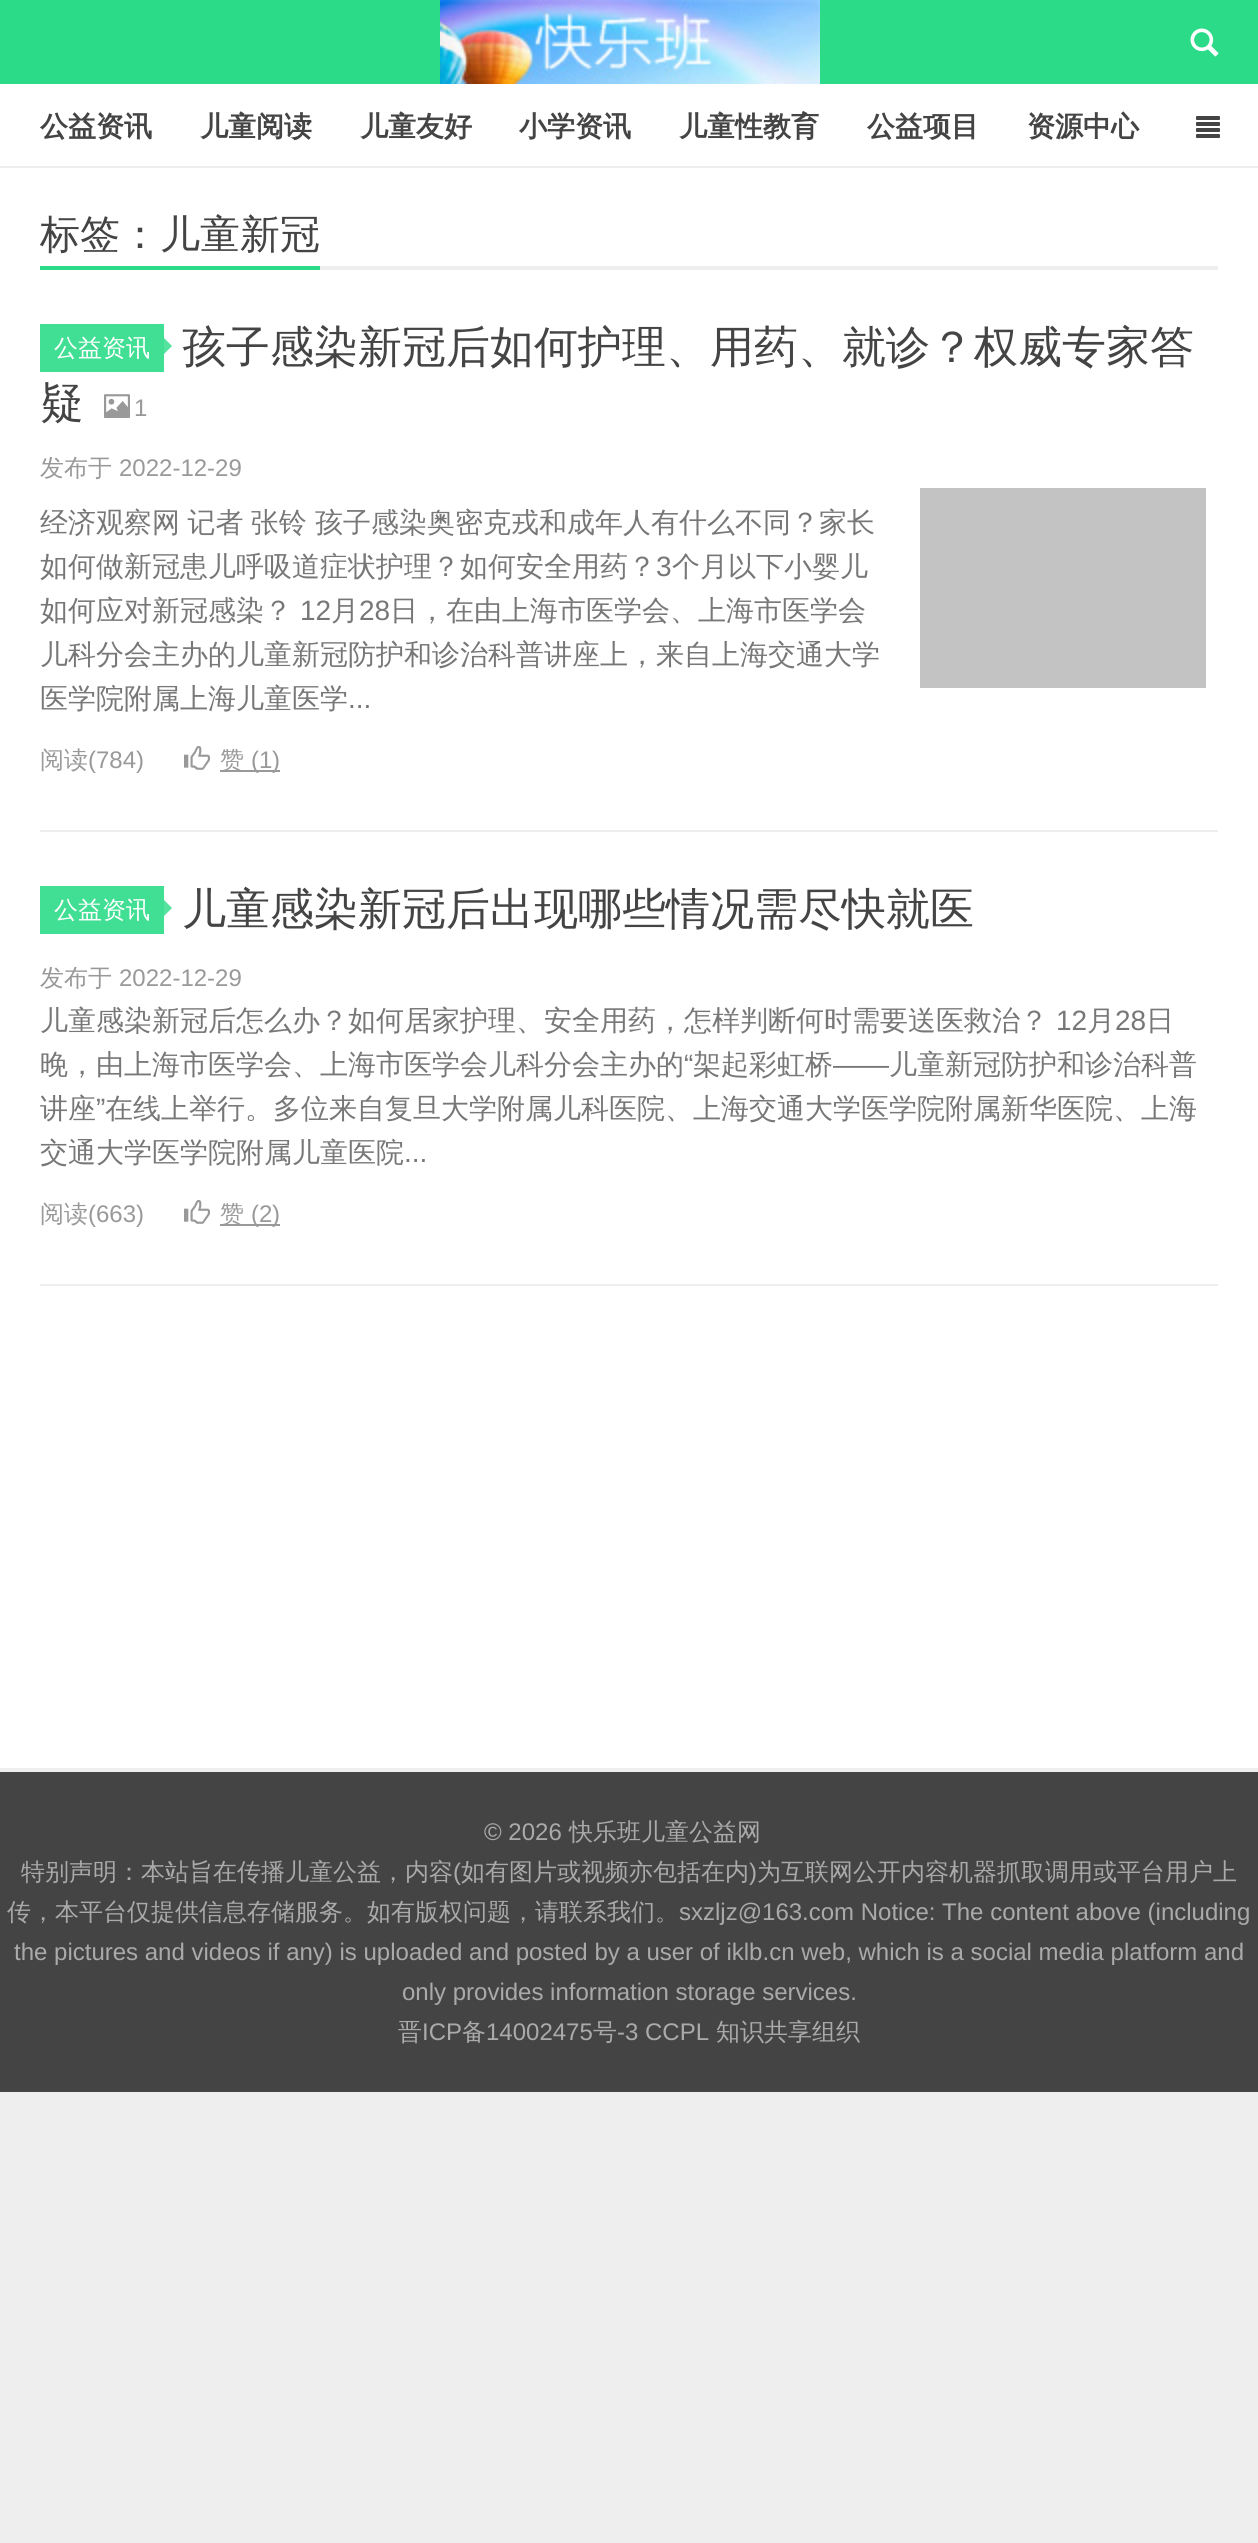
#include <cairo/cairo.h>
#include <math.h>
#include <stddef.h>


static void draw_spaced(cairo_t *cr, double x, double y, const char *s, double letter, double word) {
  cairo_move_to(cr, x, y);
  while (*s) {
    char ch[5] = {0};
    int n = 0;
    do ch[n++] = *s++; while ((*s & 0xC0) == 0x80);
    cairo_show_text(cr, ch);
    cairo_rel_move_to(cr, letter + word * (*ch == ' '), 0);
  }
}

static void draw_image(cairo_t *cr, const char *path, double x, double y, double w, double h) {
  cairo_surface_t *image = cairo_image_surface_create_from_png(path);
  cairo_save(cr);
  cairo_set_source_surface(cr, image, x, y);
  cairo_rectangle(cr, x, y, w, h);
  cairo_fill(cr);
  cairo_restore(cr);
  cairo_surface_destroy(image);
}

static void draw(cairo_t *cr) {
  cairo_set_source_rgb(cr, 238 / 255.0, 238 / 255.0, 238 / 255.0);
  cairo_paint(cr);
  cairo_set_source_rgb(cr, 1, 1, 1);
  cairo_rectangle(cr, 0, 168, 1258, 1600);
  cairo_fill(cr);
  cairo_set_source_rgb(cr, 44 / 255.0, 219 / 255.0, 135 / 255.0);
  cairo_rectangle(cr, 0, 0, 1258, 84);
  cairo_fill(cr);
  draw_image(cr, "images/1.png", 440, 0, 380, 84);
  draw_image(cr, "images/2.png", 1190, 28, 29, 29);
  cairo_set_source_rgb(cr, 1, 1, 1);
  cairo_rectangle(cr, 0, 84, 1258, 82);
  cairo_fill(cr);
  draw_image(cr, "images/3.png", 1196, 116, 24, 22);
  cairo_set_source_rgb(cr, 238 / 255.0, 238 / 255.0, 238 / 255.0);
  cairo_rectangle(cr, 320, 266, 898, 4);
  cairo_fill(cr);
  cairo_set_source_rgb(cr, 44 / 255.0, 219 / 255.0, 135 / 255.0);
  cairo_rectangle(cr, 40, 266, 280, 4);
  cairo_fill(cr);
  cairo_set_source_rgb(cr, 238 / 255.0, 238 / 255.0, 238 / 255.0);
  cairo_rectangle(cr, 40, 830, 1178, 2);
  cairo_fill(cr);
  cairo_set_source_rgb(cr, 65 / 255.0, 223 / 255.0, 147 / 255.0);
  cairo_rectangle(cr, 40, 324, 124, 48);
  cairo_fill(cr);
  cairo_set_source_rgb(cr, 84 / 255.0, 226 / 255.0, 158 / 255.0);
  cairo_new_path(cr);
  cairo_move_to(cr, 164, 354);
  cairo_line_to(cr, 164, 338);
  cairo_line_to(cr, 172, 346);
  cairo_close_path(cr);
  cairo_fill(cr);
  draw_image(cr, "images/4.png", 104, 394, 26, 24);
  cairo_set_source_rgb(cr, 195 / 255.0, 195 / 255.0, 195 / 255.0);
  cairo_rectangle(cr, 920, 488, 286, 200);
  cairo_fill(cr);
  draw_image(cr, "images/5.png", 184, 746, 26, 24);
  cairo_set_source_rgb(cr, 153 / 255.0, 153 / 255.0, 153 / 255.0);
  cairo_rectangle(cr, 220, 770, 38, 2);
  cairo_fill(cr);
  cairo_rectangle(cr, 258, 770, 22, 2);
  cairo_fill(cr);
  cairo_set_source_rgb(cr, 238 / 255.0, 238 / 255.0, 238 / 255.0);
  cairo_rectangle(cr, 40, 1284, 1178, 2);
  cairo_fill(cr);
  cairo_set_source_rgb(cr, 65 / 255.0, 223 / 255.0, 147 / 255.0);
  cairo_rectangle(cr, 40, 886, 124, 48);
  cairo_fill(cr);
  cairo_set_source_rgb(cr, 84 / 255.0, 226 / 255.0, 158 / 255.0);
  cairo_new_path(cr);
  cairo_move_to(cr, 164, 916);
  cairo_line_to(cr, 164, 900);
  cairo_line_to(cr, 172, 908);
  cairo_close_path(cr);
  cairo_fill(cr);
  draw_image(cr, "images/5.png", 184, 1200, 26, 24);
  cairo_set_source_rgb(cr, 153 / 255.0, 153 / 255.0, 153 / 255.0);
  cairo_rectangle(cr, 220, 1224, 38, 2);
  cairo_fill(cr);
  cairo_rectangle(cr, 258, 1224, 22, 2);
  cairo_fill(cr);
  cairo_set_source_rgb(cr, 68 / 255.0, 68 / 255.0, 68 / 255.0);
  cairo_rectangle(cr, 0, 1772, 1258, 320);
  cairo_fill(cr);
  cairo_select_font_face(cr, "WenQuanYi Zen Hei", CAIRO_FONT_SLANT_NORMAL, CAIRO_FONT_WEIGHT_BOLD);
  cairo_set_font_size(cr, 28);
  cairo_move_to(cr, 40, 136);
  cairo_show_text(cr, "公益资讯");
  cairo_move_to(cr, 200, 136);
  cairo_show_text(cr, "儿童阅读");
  cairo_move_to(cr, 360, 136);
  cairo_show_text(cr, "儿童友好");
  cairo_move_to(cr, 519, 136);
  cairo_show_text(cr, "小学资讯");
  cairo_move_to(cr, 679, 136);
  cairo_show_text(cr, "儿童性教育");
  cairo_move_to(cr, 867, 136);
  cairo_show_text(cr, "公益项目");
  cairo_move_to(cr, 1027, 136);
  cairo_show_text(cr, "资源中心");
  cairo_select_font_face(cr, "WenQuanYi Zen Hei Medium", CAIRO_FONT_SLANT_NORMAL, CAIRO_FONT_WEIGHT_NORMAL);
  cairo_set_font_size(cr, 40);
  cairo_move_to(cr, 40, 248);
  cairo_show_text(cr, "标签：儿童新冠");
  cairo_set_font_size(cr, 24);
  cairo_set_source_rgb(cr, 1, 1, 1);
  cairo_move_to(cr, 54, 356);
  cairo_show_text(cr, "公益资讯");
  cairo_set_font_size(cr, 44);
  cairo_set_source_rgb(cr, 68 / 255.0, 68 / 255.0, 68 / 255.0);
  cairo_move_to(cr, 182, 362);
  cairo_show_text(cr, "孩子感染新冠后如何护理、用药、就诊？权威专家答");
  cairo_move_to(cr, 40, 418);
  cairo_show_text(cr, "疑");
  cairo_select_font_face(cr, "Liberation Sans", CAIRO_FONT_SLANT_NORMAL, CAIRO_FONT_WEIGHT_NORMAL);
  cairo_set_font_size(cr, 24);
  cairo_set_source_rgb(cr, 153 / 255.0, 153 / 255.0, 153 / 255.0);
  cairo_move_to(cr, 134, 416);
  cairo_show_text(cr, "1");
  cairo_select_font_face(cr, "WenQuanYi Zen Hei Medium", CAIRO_FONT_SLANT_NORMAL, CAIRO_FONT_WEIGHT_NORMAL);
  cairo_move_to(cr, 40, 476);
  cairo_show_text(cr, "发布于");
  cairo_select_font_face(cr, "Liberation Sans", CAIRO_FONT_SLANT_NORMAL, CAIRO_FONT_WEIGHT_NORMAL);
  cairo_move_to(cr, 119, 476);
  cairo_show_text(cr, "2022-12-29");
  cairo_select_font_face(cr, "WenQuanYi Zen Hei Medium", CAIRO_FONT_SLANT_NORMAL, CAIRO_FONT_WEIGHT_NORMAL);
  cairo_set_font_size(cr, 28);
  cairo_set_source_rgb(cr, 119 / 255.0, 119 / 255.0, 119 / 255.0);
  draw_spaced(cr, 40, 532, "经济观察网 记者 张铃", 0, -1);
  cairo_move_to(cr, 315, 532);
  cairo_show_text(cr, "孩子感染奥密克戎和成年人有什么不同？家长");
  cairo_move_to(cr, 40, 576);
  cairo_show_text(cr, "如何做新冠患儿呼吸道症状护理？如何安全用药？");
  cairo_select_font_face(cr, "Liberation Sans", CAIRO_FONT_SLANT_NORMAL, CAIRO_FONT_WEIGHT_NORMAL);
  cairo_move_to(cr, 656, 576);
  cairo_show_text(cr, "3");
  cairo_select_font_face(cr, "WenQuanYi Zen Hei Medium", CAIRO_FONT_SLANT_NORMAL, CAIRO_FONT_WEIGHT_NORMAL);
  cairo_move_to(cr, 672, 576);
  cairo_show_text(cr, "个月以下小婴儿");
  cairo_move_to(cr, 40, 620);
  cairo_show_text(cr, "如何应对新冠感染？");
  cairo_select_font_face(cr, "Liberation Sans", CAIRO_FONT_SLANT_NORMAL, CAIRO_FONT_WEIGHT_NORMAL);
  cairo_move_to(cr, 300, 620);
  cairo_show_text(cr, "12");
  cairo_select_font_face(cr, "WenQuanYi Zen Hei Medium", CAIRO_FONT_SLANT_NORMAL, CAIRO_FONT_WEIGHT_NORMAL);
  cairo_move_to(cr, 331, 620);
  cairo_show_text(cr, "月");
  cairo_select_font_face(cr, "Liberation Sans", CAIRO_FONT_SLANT_NORMAL, CAIRO_FONT_WEIGHT_NORMAL);
  cairo_move_to(cr, 359, 620);
  cairo_show_text(cr, "28");
  cairo_select_font_face(cr, "WenQuanYi Zen Hei Medium", CAIRO_FONT_SLANT_NORMAL, CAIRO_FONT_WEIGHT_NORMAL);
  cairo_move_to(cr, 390, 620);
  cairo_show_text(cr, "日，在由上海市医学会、上海市医学会");
  cairo_move_to(cr, 40, 664);
  cairo_show_text(cr, "儿科分会主办的儿童新冠防护和诊治科普讲座上，来自上海交通大学");
  cairo_move_to(cr, 40, 708);
  cairo_show_text(cr, "医学院附属上海儿童医学");
  cairo_select_font_face(cr, "Liberation Sans", CAIRO_FONT_SLANT_NORMAL, CAIRO_FONT_WEIGHT_NORMAL);
  cairo_move_to(cr, 348, 708);
  cairo_show_text(cr, "...");
  cairo_select_font_face(cr, "WenQuanYi Zen Hei Medium", CAIRO_FONT_SLANT_NORMAL, CAIRO_FONT_WEIGHT_NORMAL);
  cairo_set_font_size(cr, 24);
  cairo_set_source_rgb(cr, 153 / 255.0, 153 / 255.0, 153 / 255.0);
  cairo_move_to(cr, 40, 768);
  cairo_show_text(cr, "阅读");
  cairo_select_font_face(cr, "Liberation Sans", CAIRO_FONT_SLANT_NORMAL, CAIRO_FONT_WEIGHT_NORMAL);
  cairo_move_to(cr, 88, 768);
  cairo_show_text(cr, "(784)");
  cairo_select_font_face(cr, "WenQuanYi Zen Hei Medium", CAIRO_FONT_SLANT_NORMAL, CAIRO_FONT_WEIGHT_NORMAL);
  cairo_move_to(cr, 220, 768);
  cairo_show_text(cr, "赞");
  cairo_select_font_face(cr, "Liberation Sans", CAIRO_FONT_SLANT_NORMAL, CAIRO_FONT_WEIGHT_NORMAL);
  cairo_move_to(cr, 251, 768);
  cairo_show_text(cr, "(1");
  cairo_move_to(cr, 272, 768);
  cairo_show_text(cr, ")");
  cairo_select_font_face(cr, "WenQuanYi Zen Hei Medium", CAIRO_FONT_SLANT_NORMAL, CAIRO_FONT_WEIGHT_NORMAL);
  cairo_set_source_rgb(cr, 1, 1, 1);
  cairo_move_to(cr, 54, 918);
  cairo_show_text(cr, "公益资讯");
  cairo_set_font_size(cr, 44);
  cairo_set_source_rgb(cr, 68 / 255.0, 68 / 255.0, 68 / 255.0);
  cairo_move_to(cr, 182, 924);
  cairo_show_text(cr, "儿童感染新冠后出现哪些情况需尽快就医");
  cairo_set_font_size(cr, 24);
  cairo_set_source_rgb(cr, 153 / 255.0, 153 / 255.0, 153 / 255.0);
  cairo_move_to(cr, 40, 986);
  cairo_show_text(cr, "发布于");
  cairo_select_font_face(cr, "Liberation Sans", CAIRO_FONT_SLANT_NORMAL, CAIRO_FONT_WEIGHT_NORMAL);
  cairo_move_to(cr, 119, 986);
  cairo_show_text(cr, "2022-12-29");
  cairo_select_font_face(cr, "WenQuanYi Zen Hei Medium", CAIRO_FONT_SLANT_NORMAL, CAIRO_FONT_WEIGHT_NORMAL);
  cairo_set_font_size(cr, 28);
  cairo_set_source_rgb(cr, 119 / 255.0, 119 / 255.0, 119 / 255.0);
  cairo_move_to(cr, 40, 1030);
  cairo_show_text(cr, "儿童感染新冠后怎么办？如何居家护理、安全用药，怎样判断何时需要送医救治？");
  cairo_select_font_face(cr, "Liberation Sans", CAIRO_FONT_SLANT_NORMAL, CAIRO_FONT_WEIGHT_NORMAL);
  cairo_move_to(cr, 1056, 1030);
  cairo_show_text(cr, "12");
  cairo_select_font_face(cr, "WenQuanYi Zen Hei Medium", CAIRO_FONT_SLANT_NORMAL, CAIRO_FONT_WEIGHT_NORMAL);
  cairo_move_to(cr, 1087, 1030);
  cairo_show_text(cr, "月");
  cairo_select_font_face(cr, "Liberation Sans", CAIRO_FONT_SLANT_NORMAL, CAIRO_FONT_WEIGHT_NORMAL);
  cairo_move_to(cr, 1115, 1030);
  cairo_show_text(cr, "28");
  cairo_select_font_face(cr, "WenQuanYi Zen Hei Medium", CAIRO_FONT_SLANT_NORMAL, CAIRO_FONT_WEIGHT_NORMAL);
  cairo_move_to(cr, 1146, 1030);
  cairo_show_text(cr, "日");
  cairo_move_to(cr, 40, 1074);
  cairo_show_text(cr, "晚，由上海市医学会、上海市医学会儿科分会主办的");
  cairo_select_font_face(cr, "Liberation Sans", CAIRO_FONT_SLANT_NORMAL, CAIRO_FONT_WEIGHT_NORMAL);
  cairo_move_to(cr, 684, 1074);
  cairo_show_text(cr, "“");
  cairo_select_font_face(cr, "WenQuanYi Zen Hei Medium", CAIRO_FONT_SLANT_NORMAL, CAIRO_FONT_WEIGHT_NORMAL);
  cairo_move_to(cr, 693, 1074);
  cairo_show_text(cr, "架起彩虹桥");
  cairo_move_to(cr, 889, 1074);
  cairo_show_text(cr, "儿童新冠防护和诊治科普");
  cairo_select_font_face(cr, "Liberation Sans", CAIRO_FONT_SLANT_NORMAL, CAIRO_FONT_WEIGHT_NORMAL);
  cairo_move_to(cr, 833, 1074);
  cairo_show_text(cr, "——");
  cairo_select_font_face(cr, "WenQuanYi Zen Hei Medium", CAIRO_FONT_SLANT_NORMAL, CAIRO_FONT_WEIGHT_NORMAL);
  cairo_move_to(cr, 40, 1118);
  cairo_show_text(cr, "讲座");
  cairo_select_font_face(cr, "Liberation Sans", CAIRO_FONT_SLANT_NORMAL, CAIRO_FONT_WEIGHT_NORMAL);
  cairo_move_to(cr, 96, 1118);
  cairo_show_text(cr, "”");
  cairo_select_font_face(cr, "WenQuanYi Zen Hei Medium", CAIRO_FONT_SLANT_NORMAL, CAIRO_FONT_WEIGHT_NORMAL);
  cairo_move_to(cr, 105, 1118);
  cairo_show_text(cr, "在线上举行。多位来自复旦大学附属儿科医院、上海交通大学医学院附属新华医院、上海");
  cairo_move_to(cr, 40, 1162);
  cairo_show_text(cr, "交通大学医学院附属儿童医院");
  cairo_select_font_face(cr, "Liberation Sans", CAIRO_FONT_SLANT_NORMAL, CAIRO_FONT_WEIGHT_NORMAL);
  cairo_move_to(cr, 404, 1162);
  cairo_show_text(cr, "...");
  cairo_select_font_face(cr, "WenQuanYi Zen Hei Medium", CAIRO_FONT_SLANT_NORMAL, CAIRO_FONT_WEIGHT_NORMAL);
  cairo_set_font_size(cr, 24);
  cairo_set_source_rgb(cr, 153 / 255.0, 153 / 255.0, 153 / 255.0);
  cairo_move_to(cr, 40, 1222);
  cairo_show_text(cr, "阅读");
  cairo_select_font_face(cr, "Liberation Sans", CAIRO_FONT_SLANT_NORMAL, CAIRO_FONT_WEIGHT_NORMAL);
  cairo_move_to(cr, 88, 1222);
  cairo_show_text(cr, "(663)");
  cairo_select_font_face(cr, "WenQuanYi Zen Hei Medium", CAIRO_FONT_SLANT_NORMAL, CAIRO_FONT_WEIGHT_NORMAL);
  cairo_move_to(cr, 220, 1222);
  cairo_show_text(cr, "赞");
  cairo_select_font_face(cr, "Liberation Sans", CAIRO_FONT_SLANT_NORMAL, CAIRO_FONT_WEIGHT_NORMAL);
  cairo_move_to(cr, 251, 1222);
  cairo_show_text(cr, "(2");
  cairo_move_to(cr, 272, 1222);
  cairo_show_text(cr, ")");
  cairo_set_source_rgb(cr, 170 / 255.0, 170 / 255.0, 170 / 255.0);
  cairo_move_to(cr, 484, 1840);
  cairo_show_text(cr, "© 2026");
  cairo_select_font_face(cr, "WenQuanYi Zen Hei Medium", CAIRO_FONT_SLANT_NORMAL, CAIRO_FONT_WEIGHT_NORMAL);
  cairo_move_to(cr, 569, 1840);
  cairo_show_text(cr, "快乐班儿童公益网");
  cairo_move_to(cr, 21, 1880);
  cairo_show_text(cr, "特别声明：本站旨在传播儿童公益，内容");
  cairo_select_font_face(cr, "Liberation Sans", CAIRO_FONT_SLANT_NORMAL, CAIRO_FONT_WEIGHT_NORMAL);
  cairo_move_to(cr, 453, 1880);
  cairo_show_text(cr, "(");
  cairo_select_font_face(cr, "WenQuanYi Zen Hei Medium", CAIRO_FONT_SLANT_NORMAL, CAIRO_FONT_WEIGHT_NORMAL);
  cairo_move_to(cr, 461, 1880);
  cairo_show_text(cr, "如有图片或视频亦包括在内");
  cairo_select_font_face(cr, "Liberation Sans", CAIRO_FONT_SLANT_NORMAL, CAIRO_FONT_WEIGHT_NORMAL);
  cairo_move_to(cr, 749, 1880);
  cairo_show_text(cr, ")");
  cairo_select_font_face(cr, "WenQuanYi Zen Hei Medium", CAIRO_FONT_SLANT_NORMAL, CAIRO_FONT_WEIGHT_NORMAL);
  cairo_move_to(cr, 757, 1880);
  cairo_show_text(cr, "为互联网公开内容机器抓取调用或平台用户上");
  cairo_move_to(cr, 7, 1920);
  cairo_show_text(cr, "传，本平台仅提供信息存储服务。如有版权问题，请联系我们。");
  cairo_select_font_face(cr, "Liberation Sans", CAIRO_FONT_SLANT_NORMAL, CAIRO_FONT_WEIGHT_NORMAL);
  cairo_move_to(cr, 679, 1920);
  cairo_show_text(cr, "sxzljz@163.com Notice: The content above (including");
  cairo_move_to(cr, 14, 1960);
  cairo_show_text(cr, "the pictures and videos if any) is uploaded and posted by a user of iklb.cn web, which is a social media platform and");
  cairo_move_to(cr, 402, 2000);
  cairo_show_text(cr, "only provides information storage services.");
  cairo_select_font_face(cr, "WenQuanYi Zen Hei Medium", CAIRO_FONT_SLANT_NORMAL, CAIRO_FONT_WEIGHT_NORMAL);
  cairo_move_to(cr, 398, 2040);
  cairo_show_text(cr, "晋");
  cairo_select_font_face(cr, "Liberation Sans", CAIRO_FONT_SLANT_NORMAL, CAIRO_FONT_WEIGHT_NORMAL);
  cairo_move_to(cr, 422, 2040);
  cairo_show_text(cr, "ICP");
  cairo_select_font_face(cr, "WenQuanYi Zen Hei Medium", CAIRO_FONT_SLANT_NORMAL, CAIRO_FONT_WEIGHT_NORMAL);
  cairo_move_to(cr, 462, 2040);
  cairo_show_text(cr, "备");
  cairo_select_font_face(cr, "Liberation Sans", CAIRO_FONT_SLANT_NORMAL, CAIRO_FONT_WEIGHT_NORMAL);
  cairo_move_to(cr, 486, 2040);
  cairo_show_text(cr, "14002475");
  cairo_select_font_face(cr, "WenQuanYi Zen Hei Medium", CAIRO_FONT_SLANT_NORMAL, CAIRO_FONT_WEIGHT_NORMAL);
  cairo_move_to(cr, 593, 2040);
  cairo_show_text(cr, "号");
  cairo_select_font_face(cr, "Liberation Sans", CAIRO_FONT_SLANT_NORMAL, CAIRO_FONT_WEIGHT_NORMAL);
  cairo_move_to(cr, 617, 2040);
  cairo_show_text(cr, "-3 CCPL");
  cairo_select_font_face(cr, "WenQuanYi Zen Hei Medium", CAIRO_FONT_SLANT_NORMAL, CAIRO_FONT_WEIGHT_NORMAL);
  cairo_move_to(cr, 716, 2040);
  cairo_show_text(cr, "知识共享组织");
}

int main(void) {
  cairo_surface_t *surface = cairo_image_surface_create(CAIRO_FORMAT_RGB24, 1258, 2543);
  cairo_t *cr = cairo_create(surface);
  cairo_font_options_t *options = cairo_font_options_create();
  cairo_font_options_set_hint_metrics(options, CAIRO_HINT_METRICS_OFF);
  cairo_font_options_set_hint_style(options, CAIRO_HINT_STYLE_NONE);
  cairo_set_font_options(cr, options);
  cairo_set_miter_limit(cr, 4);
  draw(cr);
  cairo_surface_write_to_png(surface, "out.png");
  cairo_font_options_destroy(options);
  cairo_destroy(cr);
  cairo_surface_destroy(surface);
  return 0;
}
